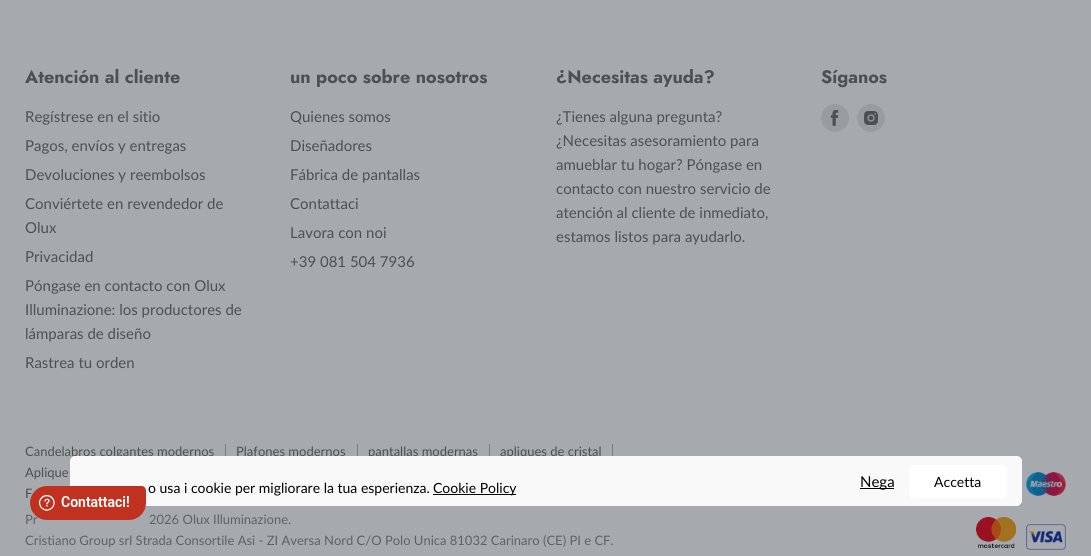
import math
import cairo


def round_path(ctx, x, y, w, h, r):
	ctx.new_sub_path()
	for i, (u, v) in enumerate([(x + w - r, y + h - r), (x + r, y + h - r), (x + r, y + r), (x + w - r, y + r)]):
		ctx.arc(u, v, r, i * math.pi / 2, (i + 1) * math.pi / 2)
	ctx.close_path()

def blur_box(ctx, x, y, w, h, r, blur, alpha):
	ctx.push_group_with_content(cairo.CONTENT_ALPHA)
	ctx.set_operator(cairo.OPERATOR_SOURCE)
	for i in range(15, -16, -2):
		e = blur * i / 6
		if min(w, h) + 2 * e > 0:
			ctx.set_source_rgba(0, 0, 0, alpha * math.erfc((i - 1) / 8.5) / 2)
			round_path(ctx, x - e, y - e, w + 2 * e, h + 2 * e, max(0, min(r + e + blur * .6, min(w, h) / 2 + e)))
			ctx.fill()
	ctx.mask(ctx.pop_group())

def paste(ctx, path, x, y, w, h):
	ctx.save()
	ctx.set_source_surface(cairo.ImageSurface.create_from_png(path), x, y)
	ctx.rectangle(x, y, w, h)
	ctx.fill()
	ctx.restore()

def draw(ctx):
	ctx.set_source_rgb(0.651, 0.667, 0.686)
	ctx.paint()
	ctx.select_font_face('Jost', cairo.FONT_SLANT_NORMAL, cairo.FONT_WEIGHT_BOLD)
	ctx.set_font_size(18)
	ctx.set_source_rgb(0.298, 0.314, 0.329)
	ctx.move_to(25, 83)
	ctx.show_text('Atención al cliente')
	ctx.select_font_face('Lato')
	ctx.set_font_size(15)
	for x, y, s in [
		(25, 122, 'Regístrese en el sitio'),
		(25, 151, 'Pagos, envíos y entregas'),
		(25, 180, 'Devoluciones y reembolsos'),
		(25, 209, 'Conviértete en revendedor de'),
		(25, 233, 'Olux'),
		(25, 262, 'Privacidad'),
		(25, 291, 'Póngase en contacto con Olux'),
		(25, 315, 'Illuminazione: los productores de'),
		(25, 339, 'lámparas de diseño'),
		(25, 368, 'Rastrea tu orden'),
	]:
		ctx.move_to(x, y)
		ctx.show_text(s)
	ctx.select_font_face('Jost', cairo.FONT_SLANT_NORMAL, cairo.FONT_WEIGHT_BOLD)
	ctx.set_font_size(18)
	ctx.move_to(290, 83)
	ctx.show_text('un poco sobre nosotros')
	ctx.select_font_face('Lato')
	ctx.set_font_size(15)
	for x, y, s in [
		(290, 122, 'Quienes somos'),
		(290, 151, 'Diseñadores'),
		(290, 180, 'Fábrica de pantallas'),
		(290, 209, 'Contattaci'),
		(290, 238, 'Lavora con noi'),
		(290, 267, '+39 081 504 7936'),
	]:
		ctx.move_to(x, y)
		ctx.show_text(s)
	ctx.select_font_face('Jost', cairo.FONT_SLANT_NORMAL, cairo.FONT_WEIGHT_BOLD)
	ctx.set_font_size(18)
	ctx.move_to(556, 83)
	ctx.show_text('¿Necesitas ayuda?')
	ctx.select_font_face('Lato')
	ctx.set_font_size(15)
	for x, y, s in [
		(556, 122, '¿Tienes alguna pregunta?'),
		(556, 146, '¿Necesitas asesoramiento para'),
		(556, 170, 'amueblar tu hogar? Póngase en'),
		(556, 194, 'contacto con nuestro servicio de'),
		(556, 218, 'atención al cliente de inmediato,'),
		(556, 242, 'estamos listos para ayudarlo.'),
	]:
		ctx.move_to(x, y)
		ctx.show_text(s)
	ctx.select_font_face('Jost', cairo.FONT_SLANT_NORMAL, cairo.FONT_WEIGHT_BOLD)
	ctx.set_font_size(18)
	ctx.move_to(821, 83)
	ctx.show_text('Síganos')
	ctx.set_source_rgb(0.596, 0.612, 0.631)
	ctx.new_path()
	ctx.arc(835, 118, 14, 0, 2 * math.pi)
	ctx.fill()
	paste(ctx, 'media/1.png', 831, 110, 8, 16)
	ctx.arc(871, 118, 14, 0, 2 * math.pi)
	ctx.fill()
	paste(ctx, 'media/2.png', 864, 111, 14, 14)
	ctx.set_source_rgb(0.475, 0.49, 0.51)
	ctx.rectangle(225, 444, 1, 15)
	ctx.fill()
	ctx.select_font_face('Lato')
	ctx.set_font_size(13)
	ctx.set_source_rgb(0.298, 0.314, 0.329)
	ctx.move_to(25, 456)
	ctx.show_text('Candelabros colgantes modernos')
	ctx.set_source_rgb(0.475, 0.49, 0.51)
	ctx.rectangle(357, 444, 1, 15)
	ctx.fill()
	ctx.set_source_rgb(0.298, 0.314, 0.329)
	ctx.move_to(236, 456)
	ctx.show_text('Plafones modernos')
	ctx.set_source_rgb(0.475, 0.49, 0.51)
	ctx.rectangle(489, 444, 1, 15)
	ctx.fill()
	ctx.set_source_rgb(0.298, 0.314, 0.329)
	ctx.move_to(368, 456)
	ctx.show_text('pantallas modernas')
	ctx.set_source_rgb(0.475, 0.49, 0.51)
	ctx.rectangle(612, 444, 1, 15)
	ctx.fill()
	ctx.set_source_rgb(0.298, 0.314, 0.329)
	for x, y, s in [
		(500, 456, 'apliques de cristal'),
		(25, 477, 'Aplique'),
		(25, 498, 'F'),
	]:
		ctx.move_to(x, y)
		ctx.show_text(s)
	ctx.set_source_rgb(0.369, 0.384, 0.4)
	for x, y, s in [
		(25, 524, 'Pr'),
		(149, 524, '2026 Olux Illuminazione.'),
		(25, 545, 'Cristiano Group srl Strada Consortile Asi - ZI Aversa Nord C/O Polo Unica 81032 Carinaro (CE) PI e CF.'),
	]:
		ctx.move_to(x, y)
		ctx.show_text(s)
	paste(ctx, 'media/3.png', 1026, 472, 40, 24)
	paste(ctx, 'media/4.png', 976, 517, 40, 31)
	paste(ctx, 'media/5.png', 1026, 524, 40, 26)
	ctx.save()
	ctx.rectangle(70, 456, 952, 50)
	ctx.clip()
	ctx.set_source_rgb(0, 0, 0)
	blur_box(ctx, 70, 458, 952, 50, 5, 5, 0.2)
	ctx.restore()
	ctx.set_source_rgb(0.973, 0.973, 0.973)
	round_path(ctx, 70, 456, 952, 50, 5)
	ctx.fill()
	paste(ctx, 'media/6.png', 30, 486, 116, 34)
	ctx.set_font_size(14)
	ctx.set_source_rgb(0, 0, 0)
	ctx.move_to(148, 493)
	ctx.show_text('o usa i cookie per migliorare la tua esperienza.')
	ctx.rectangle(433, 494, 83, 1)
	ctx.fill()
	ctx.move_to(433, 493)
	ctx.show_text('Cookie Policy')
	ctx.rectangle(860, 488, 34, 1)
	ctx.fill()
	ctx.set_font_size(15)
	ctx.move_to(860, 487)
	ctx.show_text('Nega')
	ctx.set_source_rgb(1, 1, 1)
	round_path(ctx, 909, 465, 98, 33, 5)
	ctx.fill()
	ctx.set_font_size(14)
	ctx.set_source_rgb(0, 0, 0)
	ctx.move_to(934, 487)
	ctx.show_text('Accetta')


surface = cairo.ImageSurface(cairo.FORMAT_RGB24, 1091, 556)
ctx = cairo.Context(surface)
options = cairo.FontOptions()
options.set_hint_metrics(cairo.HINT_METRICS_OFF)
options.set_hint_style(cairo.HINT_STYLE_NONE)
ctx.set_font_options(options)
ctx.set_miter_limit(4)
draw(ctx)
surface.write_to_png('image.png')
